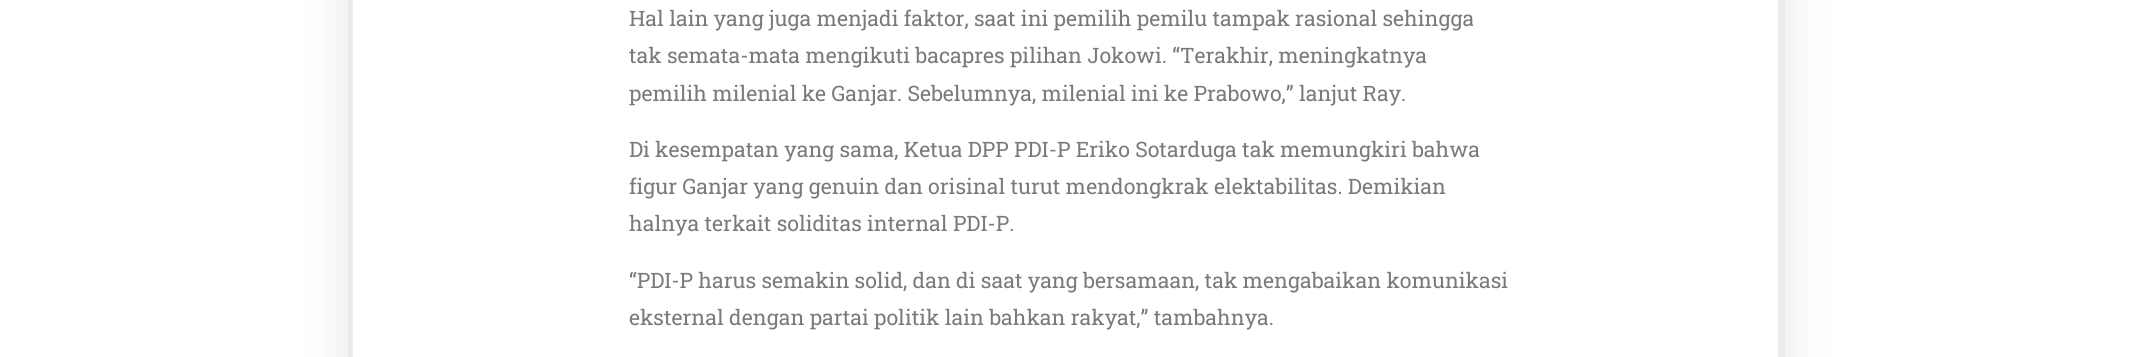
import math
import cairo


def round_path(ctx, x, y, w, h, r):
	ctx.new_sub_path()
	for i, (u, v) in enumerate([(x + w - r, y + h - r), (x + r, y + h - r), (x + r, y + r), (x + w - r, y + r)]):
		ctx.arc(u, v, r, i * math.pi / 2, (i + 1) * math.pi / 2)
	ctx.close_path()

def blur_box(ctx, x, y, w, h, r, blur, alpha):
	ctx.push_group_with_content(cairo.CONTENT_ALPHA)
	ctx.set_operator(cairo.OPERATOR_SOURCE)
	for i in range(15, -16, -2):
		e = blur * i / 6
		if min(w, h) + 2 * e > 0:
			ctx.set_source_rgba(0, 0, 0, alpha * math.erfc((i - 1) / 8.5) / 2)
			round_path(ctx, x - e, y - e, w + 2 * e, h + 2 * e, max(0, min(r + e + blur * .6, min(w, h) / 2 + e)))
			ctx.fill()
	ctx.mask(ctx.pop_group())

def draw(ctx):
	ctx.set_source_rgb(1, 1, 1)
	ctx.paint()
	ctx.set_source_rgb(0, 0, 0)
	blur_box(ctx, 388, -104, 1357, 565, 0, 34.5, 0.5)
	ctx.set_source_rgb(1, 1, 1)
	ctx.rectangle(353, 0, 1425, 357)
	ctx.fill()
	ctx.select_font_face('Roboto Slab')
	ctx.set_font_size(21.25)
	ctx.set_source_rgb(0.478, 0.478, 0.478)
	for x, y, s in [
		(629, 26, 'Hal lain yang juga menjadi faktor, saat ini pemilih pemilu tampak rasional sehingga'),
		(629, 63, 'tak semata-mata mengikuti bacapres pilihan Jokowi. “Terakhir, meningkatnya'),
		(629, 101, 'pemilih milenial ke Ganjar. Sebelumnya, milenial ini ke Prabowo,” lanjut Ray.'),
		(629, 157, 'Di kesempatan yang sama, Ketua DPP PDI-P Eriko Sotarduga tak memungkiri bahwa'),
		(629, 194, 'figur Ganjar yang genuin dan orisinal turut mendongkrak elektabilitas. Demikian'),
		(629, 231, 'halnya terkait soliditas internal PDI-P.'),
		(629, 288, '“PDI-P harus semakin solid, dan di saat yang bersamaan, tak mengabaikan komunikasi'),
		(629, 325, 'eksternal dengan partai politik lain bahkan rakyat,” tambahnya.'),
	]:
		ctx.move_to(x, y)
		ctx.show_text(s)


surface = cairo.ImageSurface(cairo.FORMAT_RGB24, 2130, 357)
ctx = cairo.Context(surface)
options = cairo.FontOptions()
options.set_hint_metrics(cairo.HINT_METRICS_OFF)
options.set_hint_style(cairo.HINT_STYLE_NONE)
ctx.set_font_options(options)
ctx.set_miter_limit(4)
draw(ctx)
surface.write_to_png('image.png')
